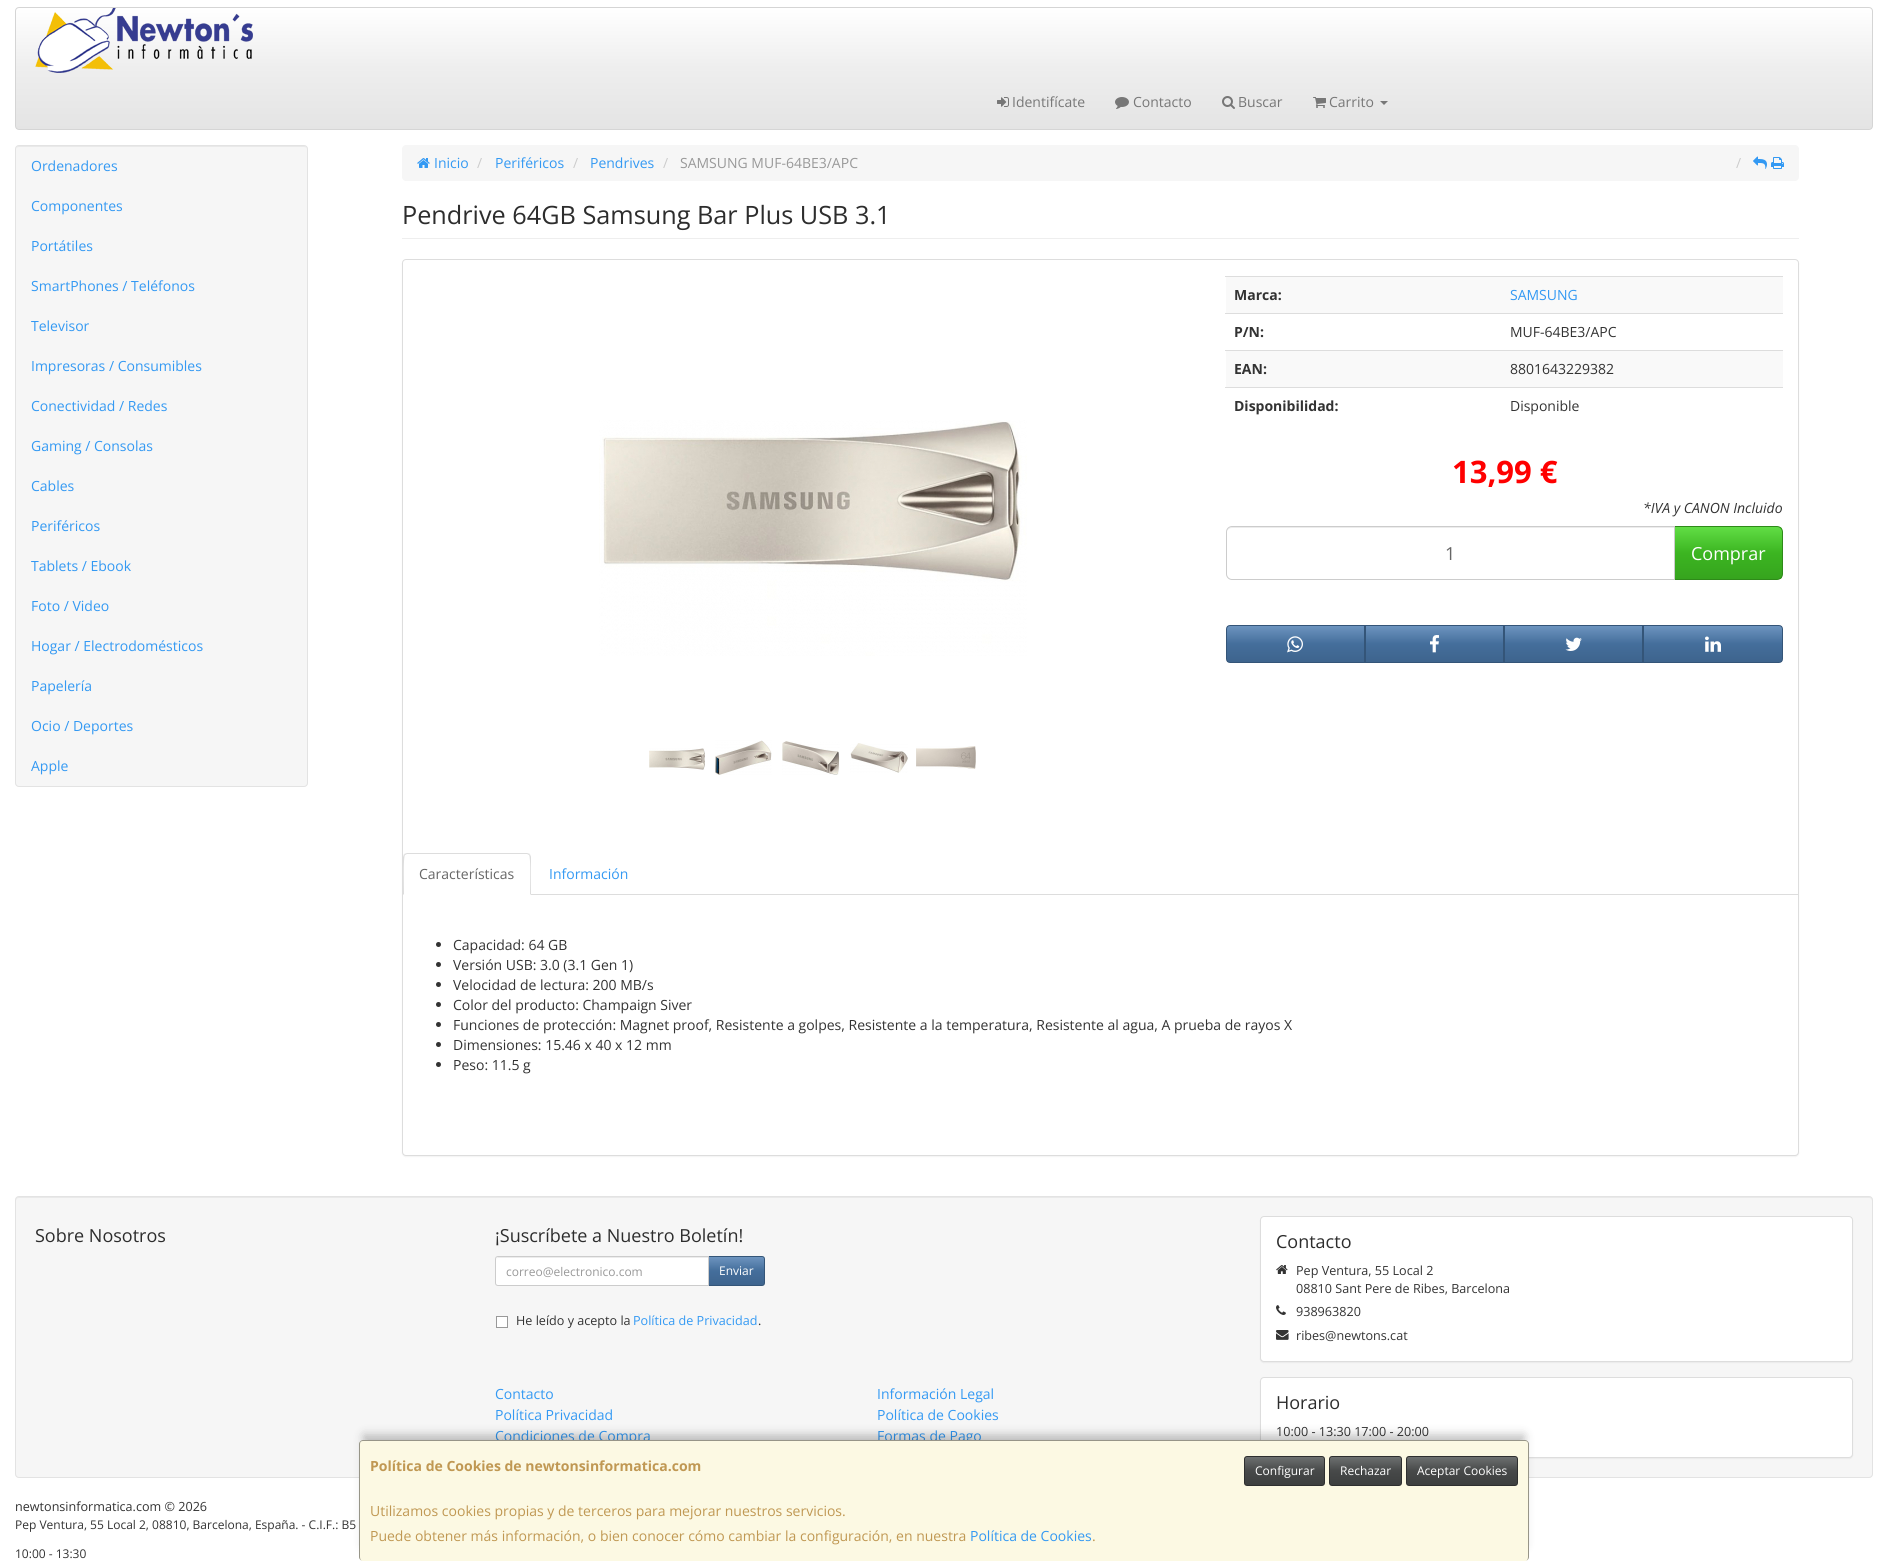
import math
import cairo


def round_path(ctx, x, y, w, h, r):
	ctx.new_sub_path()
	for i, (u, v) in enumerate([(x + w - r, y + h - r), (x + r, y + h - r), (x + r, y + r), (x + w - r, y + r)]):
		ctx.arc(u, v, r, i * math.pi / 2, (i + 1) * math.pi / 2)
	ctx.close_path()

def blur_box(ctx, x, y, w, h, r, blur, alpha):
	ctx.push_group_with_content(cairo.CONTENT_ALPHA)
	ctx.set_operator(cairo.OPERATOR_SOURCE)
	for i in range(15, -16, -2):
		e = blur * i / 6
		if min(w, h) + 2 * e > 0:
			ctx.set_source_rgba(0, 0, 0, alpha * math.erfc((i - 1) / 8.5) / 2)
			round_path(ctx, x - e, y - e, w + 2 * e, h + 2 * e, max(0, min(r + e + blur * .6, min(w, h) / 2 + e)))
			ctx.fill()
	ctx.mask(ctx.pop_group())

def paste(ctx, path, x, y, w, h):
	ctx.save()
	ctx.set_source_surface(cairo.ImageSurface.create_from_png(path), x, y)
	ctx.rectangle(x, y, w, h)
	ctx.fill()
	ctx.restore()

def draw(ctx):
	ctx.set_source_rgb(1, 1, 1)
	ctx.paint()
	ctx.save()
	round_path(ctx, 15, 7, 1858, 123, 4)
	ctx.clip()
	gradient = cairo.LinearGradient(944, 8, 944, 129)
	gradient.add_color_stop_rgba(0, 1, 1, 1, 1)
	gradient.add_color_stop_rgba(0.5, 0.933, 0.933, 0.933, 1)
	gradient.add_color_stop_rgba(1, 0.894, 0.894, 0.894, 1)
	ctx.set_source(gradient)
	ctx.rectangle(16, 8, 1856, 121)
	ctx.fill()
	ctx.restore()
	round_path(ctx, 15.5, 7.5, 1857, 122, 3.5)
	ctx.set_source_rgb(0.835, 0.835, 0.835)
	ctx.set_line_width(1)
	ctx.stroke()
	paste(ctx, 'media/1.png', 35, 8, 218, 65)
	paste(ctx, 'media/2.png', 997, 97, 12, 10)
	ctx.select_font_face('Open Sans')
	ctx.set_font_size(14)
	ctx.set_source_rgb(0.467, 0.467, 0.467)
	ctx.move_to(1012, 107)
	ctx.show_text('Identifícate')
	paste(ctx, 'media/3.png', 1115, 97, 14, 12)
	ctx.move_to(1133, 107)
	ctx.show_text('Contacto')
	paste(ctx, 'media/4.png', 1222, 96, 13, 13)
	ctx.move_to(1238, 107)
	ctx.show_text('Buscar')
	paste(ctx, 'media/5.png', 1313, 97, 13, 11)
	ctx.move_to(1329, 107)
	ctx.show_text('Carrito')
	ctx.new_path()
	ctx.move_to(1380, 101)
	ctx.line_to(1388, 101)
	ctx.line_to(1384, 105)
	ctx.close_path()
	ctx.fill()
	ctx.set_source_rgb(0.961, 0.961, 0.961)
	round_path(ctx, 15, 145, 293, 642, 4)
	ctx.fill()
	ctx.set_source_rgb(0.914, 0.914, 0.914)
	ctx.new_path()
	ctx.move_to(19, 147)
	ctx.line_to(304, 147)
	ctx.curve_to(306, 147, 307, 148, 307, 150)
	ctx.curve_to(307, 148, 306, 146, 304, 146)
	ctx.line_to(19, 146)
	ctx.curve_to(17, 146, 16, 148, 16, 150)
	ctx.curve_to(16, 148, 17, 147, 19, 147)
	ctx.close_path()
	ctx.fill()
	round_path(ctx, 15.5, 145.5, 292, 641, 3.5)
	ctx.set_source_rgb(0.89, 0.89, 0.89)
	ctx.stroke()
	ctx.set_source_rgb(0.2, 0.6, 0.953)
	for x, y, s in [
		(31, 171, 'Ordenadores'),
		(31, 211, 'Componentes'),
		(31, 251, 'Portátiles'),
		(31, 291, 'SmartPhones / Teléfonos'),
		(31, 331, 'Televisor'),
		(31, 371, 'Impresoras / Consumibles'),
		(31, 411, 'Conectividad / Redes'),
		(31, 451, 'Gaming / Consolas'),
		(31, 491, 'Cables'),
		(31, 531, 'Periféricos'),
		(31, 571, 'Tablets / Ebook'),
		(31, 611, 'Foto / Video'),
		(31, 651, 'Hogar / Electrodomésticos'),
		(31, 691, 'Papelería'),
		(31, 731, 'Ocio / Deportes'),
		(31, 771, 'Apple'),
	]:
		ctx.move_to(x, y)
		ctx.show_text(s)
	ctx.set_source_rgb(0.961, 0.961, 0.961)
	round_path(ctx, 402, 145, 1397, 36, 4)
	ctx.fill()
	paste(ctx, 'media/6.png', 417, 158, 13, 10)
	ctx.set_source_rgb(0.2, 0.6, 0.953)
	ctx.move_to(434, 168)
	ctx.show_text('Inicio')
	ctx.set_source_rgb(0.8, 0.8, 0.8)
	ctx.move_to(477, 168)
	ctx.show_text('/')
	ctx.set_source_rgb(0.2, 0.6, 0.953)
	ctx.move_to(495, 168)
	ctx.show_text('Periféricos')
	ctx.set_source_rgb(0.8, 0.8, 0.8)
	ctx.move_to(573, 168)
	ctx.show_text('/')
	ctx.set_source_rgb(0.2, 0.6, 0.953)
	ctx.move_to(590, 168)
	ctx.show_text('Pendrives')
	ctx.set_source_rgb(0.8, 0.8, 0.8)
	ctx.move_to(663, 168)
	ctx.show_text('/')
	ctx.set_source_rgb(0.6, 0.6, 0.6)
	ctx.move_to(680, 168)
	ctx.show_text('SAMSUNG MUF-64BE3/APC')
	ctx.set_source_rgb(0.8, 0.8, 0.8)
	ctx.move_to(1736, 168)
	ctx.show_text('/')
	paste(ctx, 'media/7.png', 1753, 156, 14, 13)
	paste(ctx, 'media/8.png', 1771, 157, 13, 12)
	ctx.set_source_rgb(0.933, 0.933, 0.933)
	ctx.rectangle(402, 238, 1397, 1)
	ctx.fill()
	ctx.set_font_size(25.25)
	ctx.set_source_rgb(0.176, 0.176, 0.176)
	ctx.move_to(402, 224)
	ctx.show_text('Pendrive 64GB Samsung Bar Plus USB 3.1')
	ctx.set_source_rgb(0, 0, 0)
	blur_box(ctx, 402, 260, 1397, 897, 4, 0.5, 0.05)
	ctx.set_source_rgb(1, 1, 1)
	round_path(ctx, 402.5, 259.5, 1396, 896, 3.5)
	ctx.fill_preserve()
	ctx.set_source_rgb(0.867, 0.867, 0.867)
	ctx.stroke()
	paste(ctx, 'media/9.png', 599, 420, 428, 236)
	paste(ctx, 'media/10.png', 649, 748, 56, 22)
	paste(ctx, 'media/11.png', 715, 740, 57, 35)
	paste(ctx, 'media/12.png', 782, 741, 58, 34)
	paste(ctx, 'media/13.png', 850, 743, 58, 30)
	paste(ctx, 'media/14.png', 916, 746, 60, 23)
	ctx.set_source_rgb(0.976, 0.976, 0.976)
	ctx.rectangle(1226, 277, 557, 36)
	ctx.fill()
	ctx.select_font_face('Open Sans', cairo.FONT_SLANT_NORMAL, cairo.FONT_WEIGHT_BOLD)
	ctx.set_font_size(14)
	ctx.set_source_rgb(0.2, 0.2, 0.2)
	ctx.move_to(1234, 300)
	ctx.show_text('Marca:')
	ctx.set_source_rgb(0.867, 0.867, 0.867)
	ctx.rectangle(1225, 276, 558, 1)
	ctx.fill()
	ctx.select_font_face('Open Sans')
	ctx.set_source_rgb(0.2, 0.6, 0.953)
	ctx.move_to(1510, 300)
	ctx.show_text('SAMSUNG')
	ctx.select_font_face('Open Sans', cairo.FONT_SLANT_NORMAL, cairo.FONT_WEIGHT_BOLD)
	ctx.set_source_rgb(0.2, 0.2, 0.2)
	ctx.move_to(1234, 337)
	ctx.show_text('P/N:')
	ctx.set_source_rgb(0.867, 0.867, 0.867)
	ctx.rectangle(1225, 313, 558, 1)
	ctx.fill()
	ctx.select_font_face('Open Sans')
	ctx.set_source_rgb(0.2, 0.2, 0.2)
	ctx.move_to(1510, 337)
	ctx.show_text('MUF-64BE3/APC')
	ctx.set_source_rgb(0.976, 0.976, 0.976)
	ctx.rectangle(1226, 351, 557, 36)
	ctx.fill()
	ctx.select_font_face('Open Sans', cairo.FONT_SLANT_NORMAL, cairo.FONT_WEIGHT_BOLD)
	ctx.set_source_rgb(0.2, 0.2, 0.2)
	ctx.move_to(1234, 374)
	ctx.show_text('EAN:')
	ctx.set_source_rgb(0.867, 0.867, 0.867)
	ctx.rectangle(1225, 350, 558, 1)
	ctx.fill()
	ctx.select_font_face('Open Sans')
	ctx.set_source_rgb(0.2, 0.2, 0.2)
	ctx.move_to(1510, 374)
	ctx.show_text('8801643229382')
	ctx.select_font_face('Open Sans', cairo.FONT_SLANT_NORMAL, cairo.FONT_WEIGHT_BOLD)
	ctx.move_to(1234, 411)
	ctx.show_text('Disponibilidad:')
	ctx.set_source_rgb(0.867, 0.867, 0.867)
	ctx.rectangle(1225, 387, 558, 1)
	ctx.fill()
	ctx.select_font_face('Open Sans')
	ctx.set_source_rgb(0.2, 0.2, 0.2)
	ctx.move_to(1510, 411)
	ctx.show_text('Disponible')
	ctx.select_font_face('Open Sans', cairo.FONT_SLANT_NORMAL, cairo.FONT_WEIGHT_BOLD)
	ctx.set_font_size(31)
	ctx.set_source_rgb(1, 0, 0)
	ctx.move_to(1452, 483)
	ctx.show_text('13,99 €')
	ctx.select_font_face('Open Sans', cairo.FONT_SLANT_ITALIC)
	ctx.set_font_size(14)
	ctx.set_source_rgb(0.2, 0.2, 0.2)
	ctx.move_to(1643, 513)
	ctx.show_text('*IVA y CANON Incluido')
	ctx.save()
	ctx.new_path()
	ctx.move_to(1674, 526)
	ctx.line_to(1777, 526)
	ctx.curve_to(1780.5, 526, 1783, 528.5, 1783, 532)
	ctx.line_to(1783, 574)
	ctx.curve_to(1783, 577.5, 1780.5, 580, 1777, 580)
	ctx.line_to(1674, 580)
	ctx.close_path()
	ctx.clip()
	gradient = cairo.LinearGradient(1729, 527, 1729, 579)
	gradient.add_color_stop_rgba(0, 0.38, 0.867, 0.271, 1)
	gradient.add_color_stop_rgba(0.5, 0.235, 0.71, 0.129, 1)
	gradient.add_color_stop_rgba(1, 0.212, 0.643, 0.118, 1)
	ctx.set_source(gradient)
	ctx.rectangle(1675, 527, 107, 52)
	ctx.fill()
	ctx.restore()
	ctx.new_path()
	ctx.move_to(1674.5, 526.5)
	ctx.line_to(1777, 526.5)
	ctx.curve_to(1780, 526.5, 1782.5, 529, 1782.5, 532)
	ctx.line_to(1782.5, 574)
	ctx.curve_to(1782.5, 577, 1780, 579.5, 1777, 579.5)
	ctx.line_to(1674.5, 579.5)
	ctx.close_path()
	ctx.set_source_rgb(0.18, 0.541, 0.098)
	ctx.stroke()
	ctx.set_source_rgb(1, 1, 1)
	ctx.new_path()
	ctx.move_to(1232, 526)
	ctx.line_to(1675, 526)
	ctx.line_to(1675, 580)
	ctx.line_to(1232, 580)
	ctx.curve_to(1228.5, 580, 1226, 577.5, 1226, 574)
	ctx.line_to(1226, 532)
	ctx.curve_to(1226, 528.5, 1228.5, 526, 1232, 526)
	ctx.close_path()
	ctx.fill()
	ctx.set_source_rgb(0.925, 0.925, 0.925)
	ctx.new_path()
	ctx.move_to(1232, 528)
	ctx.line_to(1674, 528)
	ctx.line_to(1674, 527)
	ctx.line_to(1232, 527)
	ctx.curve_to(1229, 527, 1227, 530, 1227, 533)
	ctx.curve_to(1227, 530, 1229, 528, 1232, 528)
	ctx.close_path()
	ctx.fill()
	ctx.new_path()
	ctx.move_to(1232, 526.5)
	ctx.line_to(1674.5, 526.5)
	ctx.line_to(1674.5, 579.5)
	ctx.line_to(1232, 579.5)
	ctx.curve_to(1229, 579.5, 1226.5, 577, 1226.5, 574)
	ctx.line_to(1226.5, 532)
	ctx.curve_to(1226.5, 529, 1229, 526.5, 1232, 526.5)
	ctx.close_path()
	ctx.set_source_rgb(0.8, 0.8, 0.8)
	ctx.stroke()
	ctx.select_font_face('Open Sans')
	ctx.set_font_size(18)
	ctx.set_source_rgb(0.4, 0.4, 0.4)
	ctx.move_to(1445, 560)
	ctx.show_text('1')
	ctx.set_source_rgb(1, 1, 1)
	ctx.move_to(1691, 560)
	ctx.show_text('Comprar')
	gradient = cairo.LinearGradient(1296, 626, 1296, 662)
	gradient.add_color_stop_rgba(0, 0.427, 0.58, 0.749, 1)
	gradient.add_color_stop_rgba(0.5, 0.267, 0.431, 0.608, 1)
	gradient.add_color_stop_rgba(1, 0.243, 0.392, 0.553, 1)
	ctx.set_source(gradient)
	ctx.rectangle(1227, 626, 137, 36)
	ctx.fill()
	ctx.new_path()
	ctx.move_to(1230, 625.5)
	ctx.line_to(1364.5, 625.5)
	ctx.line_to(1364.5, 662.5)
	ctx.line_to(1230, 662.5)
	ctx.curve_to(1228, 662.5, 1226.5, 661, 1226.5, 659)
	ctx.line_to(1226.5, 629)
	ctx.curve_to(1226.5, 627, 1228, 625.5, 1230, 625.5)
	ctx.close_path()
	ctx.set_source_rgb(0.204, 0.333, 0.471)
	ctx.stroke()
	paste(ctx, 'media/15.png', 1287, 636, 16, 17)
	gradient = cairo.LinearGradient(1435, 626, 1435, 662)
	gradient.add_color_stop_rgba(0, 0.427, 0.58, 0.749, 1)
	gradient.add_color_stop_rgba(0.5, 0.267, 0.431, 0.608, 1)
	gradient.add_color_stop_rgba(1, 0.243, 0.392, 0.553, 1)
	ctx.set_source(gradient)
	ctx.rectangle(1366, 626, 137, 36)
	ctx.fill()
	ctx.rectangle(1365.5, 625.5, 138, 37)
	ctx.set_source_rgb(0.204, 0.333, 0.471)
	ctx.stroke()
	paste(ctx, 'media/16.png', 1430, 635, 9, 18)
	gradient = cairo.LinearGradient(1574, 626, 1574, 662)
	gradient.add_color_stop_rgba(0, 0.427, 0.58, 0.749, 1)
	gradient.add_color_stop_rgba(0.5, 0.267, 0.431, 0.608, 1)
	gradient.add_color_stop_rgba(1, 0.243, 0.392, 0.553, 1)
	ctx.set_source(gradient)
	ctx.rectangle(1505, 626, 137, 36)
	ctx.fill()
	ctx.rectangle(1504.5, 625.5, 138, 37)
	ctx.set_source_rgb(0.204, 0.333, 0.471)
	ctx.stroke()
	paste(ctx, 'media/17.png', 1565, 637, 17, 14)
	gradient = cairo.LinearGradient(1713, 626, 1713, 662)
	gradient.add_color_stop_rgba(0, 0.427, 0.58, 0.749, 1)
	gradient.add_color_stop_rgba(0.5, 0.267, 0.431, 0.608, 1)
	gradient.add_color_stop_rgba(1, 0.243, 0.392, 0.553, 1)
	ctx.set_source(gradient)
	ctx.rectangle(1644, 626, 138, 36)
	ctx.fill()
	ctx.new_path()
	ctx.move_to(1643.5, 625.5)
	ctx.line_to(1779, 625.5)
	ctx.curve_to(1781, 625.5, 1782.5, 627, 1782.5, 629)
	ctx.line_to(1782.5, 659)
	ctx.curve_to(1782.5, 661, 1781, 662.5, 1779, 662.5)
	ctx.line_to(1643.5, 662.5)
	ctx.close_path()
	ctx.set_source_rgb(0.204, 0.333, 0.471)
	ctx.stroke()
	paste(ctx, 'media/18.png', 1705, 636, 16, 16)
	ctx.set_source_rgb(0.867, 0.867, 0.867)
	ctx.rectangle(531, 894, 1267, 1)
	ctx.fill()
	ctx.new_path()
	ctx.move_to(407, 853)
	ctx.line_to(404, 854)
	ctx.line_to(405, 855)
	ctx.line_to(407, 854)
	ctx.line_to(527, 854)
	ctx.line_to(529, 855)
	ctx.line_to(530, 854)
	ctx.line_to(527, 853)
	ctx.close_path()
	ctx.fill()
	ctx.new_path()
	ctx.move_to(531, 895)
	ctx.line_to(531, 857)
	ctx.curve_to(531, 856, 530, 855, 530, 854)
	ctx.line_to(529, 855)
	ctx.curve_to(531, 857, 530, 889, 530, 894)
	ctx.close_path()
	ctx.fill()
	ctx.new_path()
	ctx.move_to(403, 895)
	ctx.line_to(404, 894)
	ctx.curve_to(404, 889, 403, 857, 405, 855)
	ctx.line_to(404, 854)
	ctx.line_to(403, 857)
	ctx.close_path()
	ctx.fill()
	ctx.set_font_size(14)
	ctx.set_source_rgb(0.4, 0.4, 0.4)
	ctx.move_to(419, 879)
	ctx.show_text('Características')
	ctx.set_source_rgb(0.2, 0.6, 0.953)
	ctx.move_to(549, 879)
	ctx.show_text('Información')
	ctx.set_source_rgb(0.2, 0.2, 0.2)
	ctx.new_path()
	ctx.arc(438.5, 944.5, 2.5, 0, 2 * math.pi)
	ctx.fill()
	ctx.move_to(453, 950)
	ctx.show_text('Capacidad: 64 GB')
	ctx.new_path()
	ctx.arc(438.5, 964.5, 2.5, 0, 2 * math.pi)
	ctx.fill()
	ctx.move_to(453, 970)
	ctx.show_text('Versión USB: 3.0 (3.1 Gen 1)')
	ctx.new_path()
	ctx.arc(438.5, 984.5, 2.5, 0, 2 * math.pi)
	ctx.fill()
	ctx.move_to(453, 990)
	ctx.show_text('Velocidad de lectura: 200 MB/s')
	ctx.new_path()
	ctx.arc(438.5, 1004.5, 2.5, 0, 2 * math.pi)
	ctx.fill()
	ctx.move_to(453, 1010)
	ctx.show_text('Color del producto: Champaign Siver')
	ctx.new_path()
	ctx.arc(438.5, 1024.5, 2.5, 0, 2 * math.pi)
	ctx.fill()
	ctx.move_to(453, 1030)
	ctx.show_text('Funciones de protección: Magnet proof, Resistente a golpes, Resistente a la temperatura, Resistente al agua, A prueba de rayos X')
	ctx.new_path()
	ctx.arc(438.5, 1044.5, 2.5, 0, 2 * math.pi)
	ctx.fill()
	ctx.move_to(453, 1050)
	ctx.show_text('Dimensiones: 15.46 x 40 x 12 mm')
	ctx.new_path()
	ctx.arc(438.5, 1064.5, 2.5, 0, 2 * math.pi)
	ctx.fill()
	ctx.move_to(453, 1070)
	ctx.show_text('Peso: 11.5 g')
	ctx.set_source_rgb(0.961, 0.961, 0.961)
	round_path(ctx, 15, 1196, 1858, 282, 4)
	ctx.fill()
	ctx.set_source_rgb(0.914, 0.914, 0.914)
	ctx.new_path()
	ctx.move_to(19, 1198)
	ctx.line_to(1869, 1198)
	ctx.curve_to(1871, 1198, 1872, 1199, 1872, 1201)
	ctx.line_to(1872, 1200)
	ctx.curve_to(1872, 1198, 1871, 1197, 1869, 1197)
	ctx.line_to(19, 1197)
	ctx.curve_to(17, 1197, 16, 1198, 16, 1200)
	ctx.line_to(16, 1201)
	ctx.curve_to(16, 1199, 17, 1198, 19, 1198)
	ctx.close_path()
	ctx.fill()
	round_path(ctx, 15.5, 1196.5, 1857, 281, 3.5)
	ctx.set_source_rgb(0.89, 0.89, 0.89)
	ctx.stroke()
	ctx.set_font_size(18)
	ctx.set_source_rgb(0.176, 0.176, 0.176)
	ctx.move_to(35, 1242)
	ctx.show_text('Sobre Nosotros')
	ctx.move_to(495, 1242)
	ctx.show_text('¡Suscríbete a Nuestro Boletín!')
	gradient = cairo.LinearGradient(737, 1257, 737, 1285)
	gradient.add_color_stop_rgba(0, 0.427, 0.58, 0.749, 1)
	gradient.add_color_stop_rgba(0.5, 0.267, 0.431, 0.608, 1)
	gradient.add_color_stop_rgba(1, 0.243, 0.392, 0.553, 1)
	ctx.set_source(gradient)
	ctx.rectangle(709, 1257, 55, 28)
	ctx.fill()
	ctx.new_path()
	ctx.move_to(708.5, 1256.5)
	ctx.line_to(762, 1256.5)
	ctx.curve_to(763.5, 1256.5, 764.5, 1257.5, 764.5, 1259)
	ctx.line_to(764.5, 1283)
	ctx.curve_to(764.5, 1284.5, 763.5, 1285.5, 762, 1285.5)
	ctx.line_to(708.5, 1285.5)
	ctx.close_path()
	ctx.set_source_rgb(0.204, 0.333, 0.471)
	ctx.stroke()
	ctx.set_source_rgb(1, 1, 1)
	ctx.new_path()
	ctx.move_to(498, 1256)
	ctx.line_to(709, 1256)
	ctx.line_to(709, 1286)
	ctx.line_to(498, 1286)
	ctx.curve_to(496.5, 1286, 495, 1284.5, 495, 1283)
	ctx.line_to(495, 1259)
	ctx.curve_to(495, 1257.5, 496.5, 1256, 498, 1256)
	ctx.close_path()
	ctx.fill()
	ctx.set_source_rgb(0.925, 0.925, 0.925)
	ctx.new_path()
	ctx.move_to(498, 1258)
	ctx.line_to(708, 1258)
	ctx.line_to(708, 1257)
	ctx.line_to(498, 1257)
	ctx.line_to(497, 1258)
	ctx.line_to(496, 1260)
	ctx.curve_to(496, 1259, 497, 1258, 498, 1258)
	ctx.close_path()
	ctx.fill()
	ctx.new_path()
	ctx.move_to(498, 1256.5)
	ctx.line_to(708.5, 1256.5)
	ctx.line_to(708.5, 1285.5)
	ctx.line_to(498, 1285.5)
	ctx.curve_to(496.5, 1285.5, 495.5, 1284.5, 495.5, 1283)
	ctx.line_to(495.5, 1259)
	ctx.curve_to(495.5, 1257.5, 496.5, 1256.5, 498, 1256.5)
	ctx.close_path()
	ctx.set_source_rgb(0.8, 0.8, 0.8)
	ctx.stroke()
	ctx.set_font_size(12)
	ctx.set_source_rgb(0.6, 0.6, 0.6)
	ctx.move_to(506, 1276)
	ctx.show_text('correo@electronico.com')
	ctx.set_source_rgb(1, 1, 1)
	ctx.move_to(719, 1275)
	ctx.show_text('Enviar')
	ctx.rectangle(496.5, 1316.5, 11, 11)
	ctx.fill_preserve()
	ctx.set_source_rgb(0.6, 0.6, 0.6)
	ctx.stroke()
	ctx.set_font_size(12.6)
	ctx.set_source_rgb(0.2, 0.2, 0.2)
	ctx.move_to(516, 1325)
	ctx.show_text('He leído y acepto la')
	ctx.set_source_rgb(0.2, 0.6, 0.953)
	ctx.move_to(633, 1325)
	ctx.show_text('Política de Privacidad')
	ctx.set_source_rgb(0.2, 0.2, 0.2)
	ctx.move_to(758, 1325)
	ctx.show_text('.')
	ctx.set_font_size(14)
	ctx.set_source_rgb(0.2, 0.6, 0.953)
	for x, y, s in [
		(495, 1399, 'Contacto'),
		(877, 1399, 'Información Legal'),
		(495, 1420, 'Política Privacidad'),
		(877, 1420, 'Política de Cookies'),
		(495, 1441, 'Condiciones de Compra'),
		(877, 1441, 'Formas de Pago'),
	]:
		ctx.move_to(x, y)
		ctx.show_text(s)
	ctx.set_source_rgb(0, 0, 0)
	blur_box(ctx, 1260, 1217, 593, 146, 4, 0.5, 0.05)
	ctx.set_source_rgb(1, 1, 1)
	round_path(ctx, 1260.5, 1216.5, 592, 145, 3.5)
	ctx.fill_preserve()
	ctx.set_source_rgb(0.867, 0.867, 0.867)
	ctx.stroke()
	ctx.set_font_size(18)
	ctx.set_source_rgb(0.176, 0.176, 0.176)
	ctx.move_to(1276, 1248)
	ctx.show_text('Contacto')
	paste(ctx, 'media/19.png', 1276, 1265, 12, 9)
	ctx.set_font_size(12.6)
	ctx.set_source_rgb(0.2, 0.2, 0.2)
	ctx.move_to(1296, 1275)
	ctx.show_text('Pep Ventura, 55 Local 2')
	ctx.move_to(1296, 1293)
	ctx.show_text('08810 Sant Pere de Ribes, Barcelona')
	paste(ctx, 'media/20.png', 1276, 1305, 10, 10)
	ctx.move_to(1296, 1316)
	ctx.show_text('938963820')
	paste(ctx, 'media/21.png', 1276, 1330, 13, 10)
	ctx.move_to(1296, 1340)
	ctx.show_text('ribes@newtons.cat')
	ctx.set_source_rgb(0, 0, 0)
	blur_box(ctx, 1260, 1378, 593, 81, 4, 0.5, 0.05)
	ctx.set_source_rgb(1, 1, 1)
	round_path(ctx, 1260.5, 1377.5, 592, 80, 3.5)
	ctx.fill_preserve()
	ctx.set_source_rgb(0.867, 0.867, 0.867)
	ctx.stroke()
	ctx.set_font_size(18)
	ctx.set_source_rgb(0.176, 0.176, 0.176)
	ctx.move_to(1276, 1409)
	ctx.show_text('Horario')
	ctx.set_font_size(12.6)
	ctx.set_source_rgb(0.2, 0.2, 0.2)
	ctx.move_to(1276, 1436)
	ctx.show_text('10:00 - 13:30 17:00 - 20:00')
	ctx.move_to(15, 1511)
	ctx.show_text('newtonsinformatica.com © 2026')
	ctx.set_font_size(12)
	ctx.move_to(15, 1529)
	ctx.show_text('Pep Ventura, 55 Local 2, 08810, Barcelona, España. - C.I.F.: B5')
	ctx.move_to(15, 1558)
	ctx.show_text('10:00 - 13:30')
	ctx.set_source_rgb(0, 0, 0)
	blur_box(ctx, 364, 1435, 1160, 111, 0, 5, 0.25)
	ctx.set_source_rgb(0.988, 0.973, 0.89)
	round_path(ctx, 359, 1440, 1170, 121, 4)
	ctx.fill()
	ctx.set_source_rgba(0, 0, 0, 0.4)
	ctx.set_fill_rule(cairo.FILL_RULE_EVEN_ODD)
	ctx.new_path()
	ctx.move_to(363, 1440)
	ctx.line_to(1525, 1440)
	ctx.curve_to(1527, 1440, 1529, 1442, 1529, 1444)
	ctx.line_to(1529, 1557)
	ctx.curve_to(1529, 1559, 1527, 1561, 1525, 1561)
	ctx.line_to(363, 1561)
	ctx.curve_to(361, 1561, 359, 1559, 359, 1557)
	ctx.line_to(359, 1444)
	ctx.curve_to(359, 1442, 361, 1440, 363, 1440)
	ctx.close_path()
	ctx.move_to(363, 1441)
	ctx.line_to(1525, 1441)
	ctx.curve_to(1527, 1441, 1528, 1442, 1528, 1444)
	ctx.line_to(1528, 1557)
	ctx.curve_to(1528, 1559, 1527, 1561, 1525, 1561)
	ctx.line_to(363, 1561)
	ctx.curve_to(361, 1561, 360, 1559, 360, 1557)
	ctx.line_to(360, 1444)
	ctx.curve_to(360, 1442, 361, 1441, 363, 1441)
	ctx.close_path()
	ctx.fill()
	ctx.select_font_face('Open Sans', cairo.FONT_SLANT_NORMAL, cairo.FONT_WEIGHT_BOLD)
	ctx.set_font_size(14)
	ctx.set_source_rgb(0.753, 0.596, 0.325)
	ctx.move_to(370, 1471)
	ctx.show_text('Política de Cookies de newtonsinformatica.com')
	gradient = cairo.LinearGradient(1285, 1457, 1285, 1485)
	gradient.add_color_stop_rgba(0, 0.427, 0.439, 0.439, 1)
	gradient.add_color_stop_rgba(0.5, 0.278, 0.286, 0.286, 1)
	gradient.add_color_stop_rgba(1, 0.239, 0.247, 0.247, 1)
	ctx.set_source(gradient)
	ctx.rectangle(1245, 1457, 79, 28)
	ctx.fill()
	round_path(ctx, 1244.5, 1456.5, 80, 29, 2.5)
	ctx.set_source_rgb(0.18, 0.184, 0.184)
	ctx.stroke()
	ctx.select_font_face('Open Sans')
	ctx.set_font_size(12)
	ctx.set_source_rgb(1, 1, 1)
	ctx.move_to(1255, 1475)
	ctx.show_text('Configurar')
	gradient = cairo.LinearGradient(1366, 1457, 1366, 1485)
	gradient.add_color_stop_rgba(0, 0.427, 0.439, 0.439, 1)
	gradient.add_color_stop_rgba(0.5, 0.278, 0.286, 0.286, 1)
	gradient.add_color_stop_rgba(1, 0.239, 0.247, 0.247, 1)
	ctx.set_source(gradient)
	ctx.rectangle(1330, 1457, 71, 28)
	ctx.fill()
	round_path(ctx, 1329.5, 1456.5, 72, 29, 2.5)
	ctx.set_source_rgb(0.18, 0.184, 0.184)
	ctx.stroke()
	ctx.set_source_rgb(1, 1, 1)
	ctx.move_to(1340, 1475)
	ctx.show_text('Rechazar')
	gradient = cairo.LinearGradient(1462, 1457, 1462, 1485)
	gradient.add_color_stop_rgba(0, 0.427, 0.439, 0.439, 1)
	gradient.add_color_stop_rgba(0.5, 0.278, 0.286, 0.286, 1)
	gradient.add_color_stop_rgba(1, 0.239, 0.247, 0.247, 1)
	ctx.set_source(gradient)
	ctx.rectangle(1407, 1457, 110, 28)
	ctx.fill()
	round_path(ctx, 1406.5, 1456.5, 111, 29, 2.5)
	ctx.set_source_rgb(0.18, 0.184, 0.184)
	ctx.stroke()
	ctx.set_source_rgb(1, 1, 1)
	ctx.move_to(1417, 1475)
	ctx.show_text('Aceptar Cookies')
	ctx.set_font_size(14)
	ctx.set_source_rgb(0.753, 0.596, 0.325)
	ctx.move_to(370, 1516)
	ctx.show_text('Utilizamos cookies propias y de terceros para mejorar nuestros servicios.')
	ctx.move_to(370, 1541)
	ctx.show_text('Puede obtener más información, o bien conocer cómo cambiar la configuración, en nuestra')
	ctx.set_source_rgb(0.2, 0.6, 0.953)
	ctx.move_to(970, 1541)
	ctx.show_text('Política de Cookies')
	ctx.set_source_rgb(0.753, 0.596, 0.325)
	ctx.move_to(1092, 1541)
	ctx.show_text('.')


surface = cairo.ImageSurface(cairo.FORMAT_RGB24, 1888, 1561)
ctx = cairo.Context(surface)
options = cairo.FontOptions()
options.set_hint_metrics(cairo.HINT_METRICS_OFF)
options.set_hint_style(cairo.HINT_STYLE_NONE)
ctx.set_font_options(options)
ctx.set_miter_limit(4)
draw(ctx)
surface.write_to_png('image.png')
